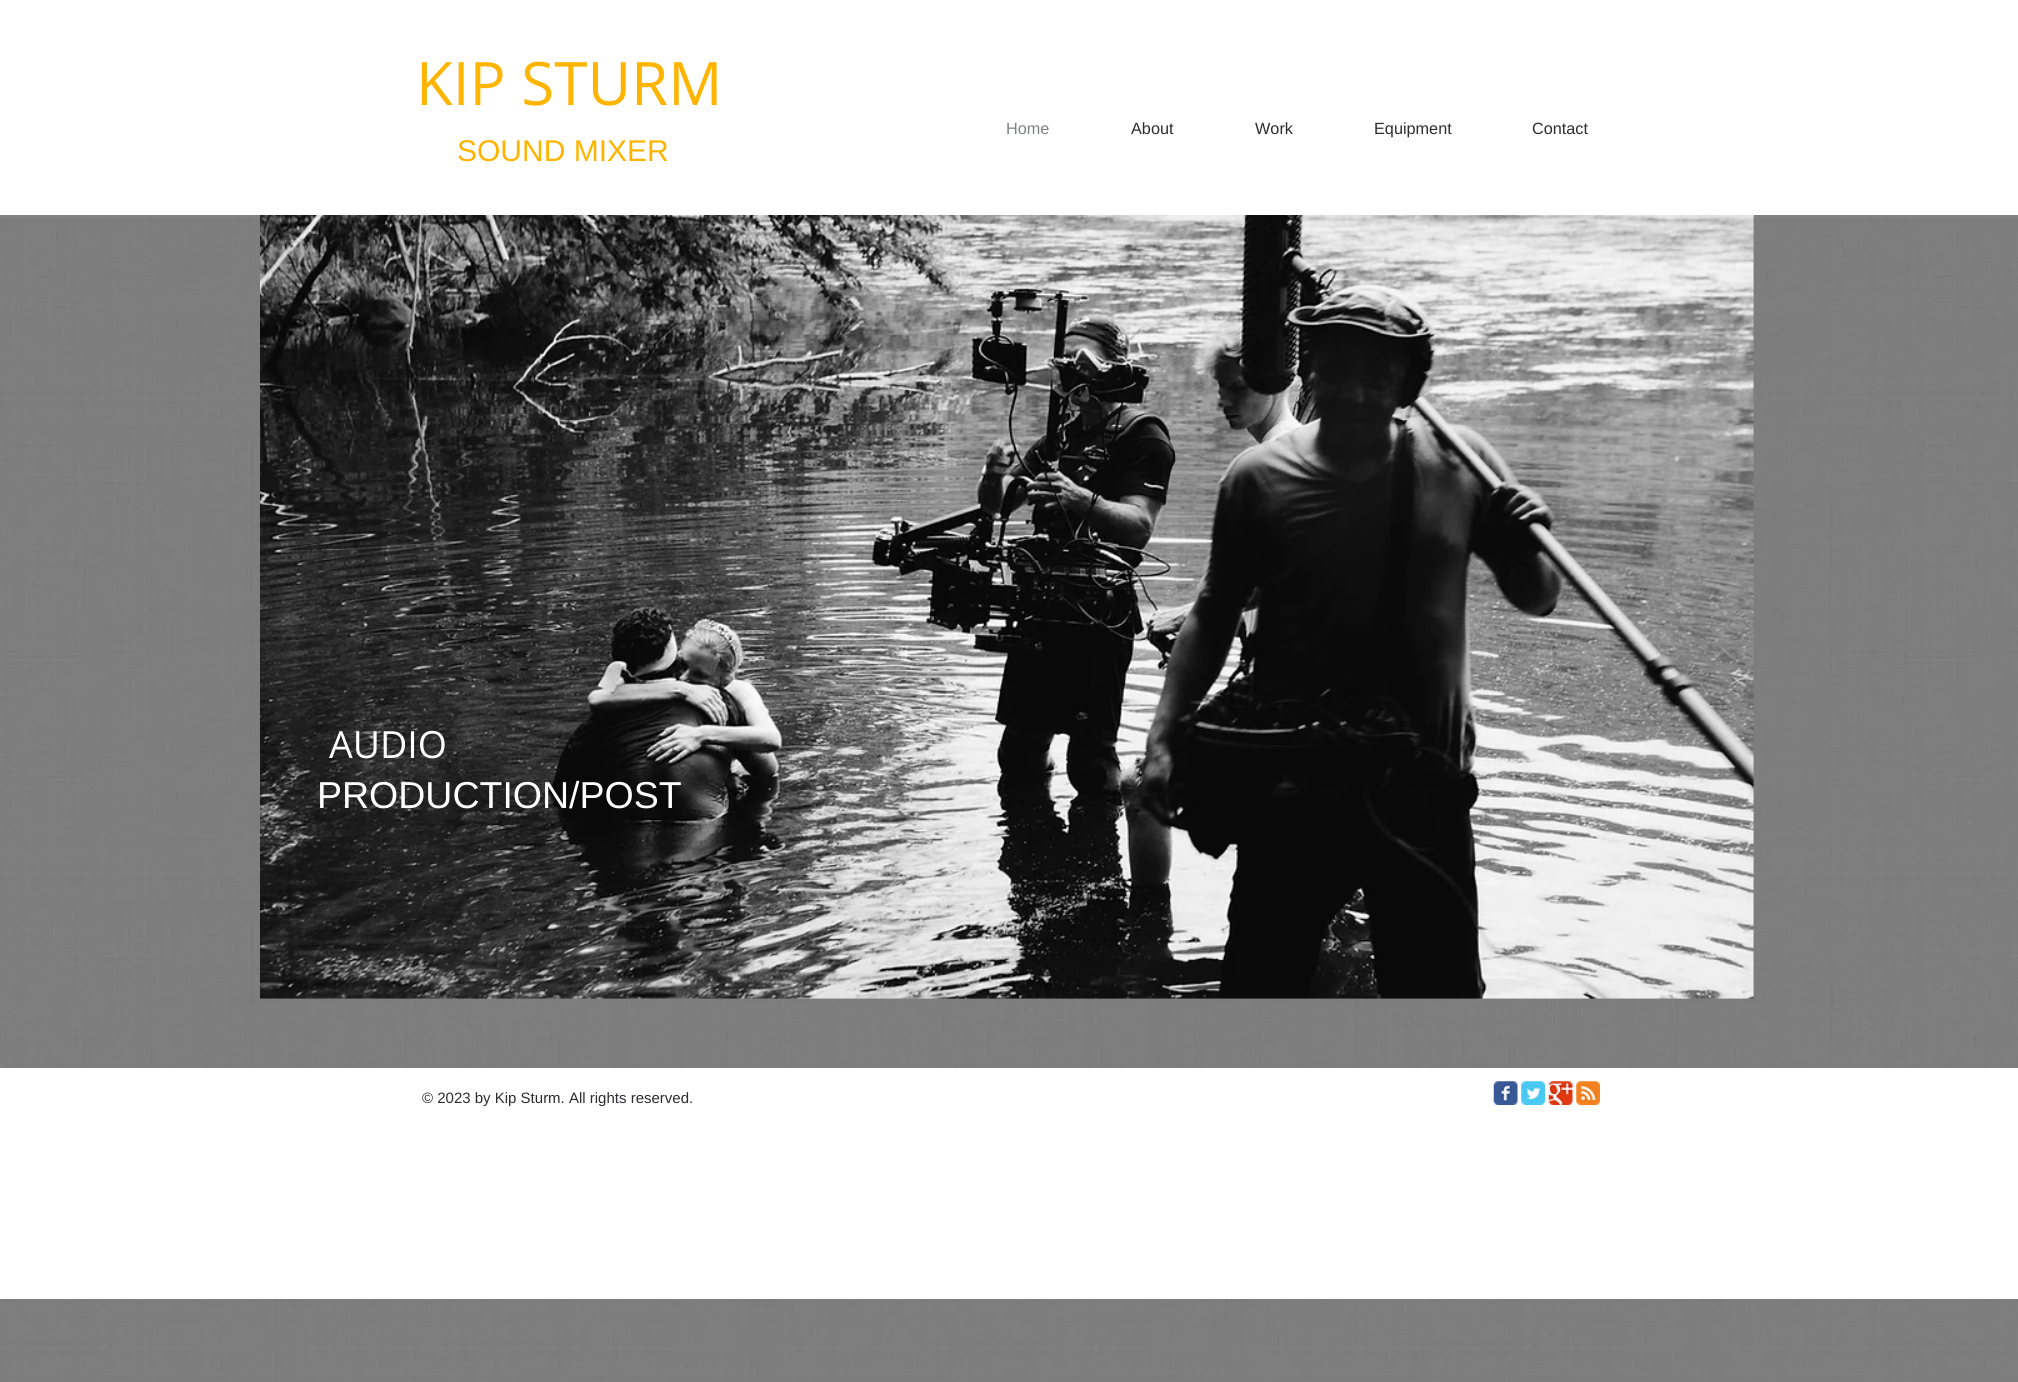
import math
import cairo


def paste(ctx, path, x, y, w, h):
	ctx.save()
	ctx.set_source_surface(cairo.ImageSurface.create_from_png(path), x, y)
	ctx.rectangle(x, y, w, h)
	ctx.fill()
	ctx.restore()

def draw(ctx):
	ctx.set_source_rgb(1, 1, 1)
	ctx.paint()
	ctx.select_font_face('Open Sans')
	ctx.set_font_size(60)
	ctx.set_source_rgb(1, 0.706, 0)
	ctx.move_to(416, 105)
	ctx.show_text('KIP STURM')
	ctx.select_font_face('Liberation Sans')
	ctx.set_font_size(30)
	ctx.move_to(457, 161)
	ctx.show_text('SOUND MIXER')
	ctx.set_font_size(16.25)
	ctx.set_source_rgb(0.502, 0.51, 0.525)
	ctx.move_to(1006, 134)
	ctx.show_text('Home')
	ctx.set_source_rgb(0.176, 0.176, 0.184)
	for x, y, s in [
		(1131, 134, 'About'),
		(1255, 134, 'Work'),
		(1374, 134, 'Equipment'),
		(1532, 134, 'Contact'),
	]:
		ctx.move_to(x, y)
		ctx.show_text(s)
	ctx.set_source_rgb(0.502, 0.51, 0.525)
	ctx.rectangle(0, 215, 2018, 3)
	ctx.fill()
	paste(ctx, 'media/6.png', 0, 218, 2018, 1164)
	paste(ctx, 'media/1.png', 260, 215, 1494, 784)
	ctx.select_font_face('Open Sans')
	ctx.set_font_size(37.5)
	ctx.set_source_rgb(1, 1, 1)
	ctx.move_to(329, 758)
	ctx.show_text('AUDIO')
	ctx.select_font_face('Liberation Sans')
	ctx.move_to(317, 808)
	ctx.show_text('PRODUCTION/POST')
	ctx.rectangle(0, 1068, 2018, 231)
	ctx.fill()
	ctx.set_font_size(15)
	ctx.set_source_rgb(0.176, 0.176, 0.184)
	ctx.move_to(422, 1103)
	ctx.show_text('© 2023 by Kip Sturm. All rights reserved.')
	paste(ctx, 'media/2.png', 1493, 1081, 25, 24)
	paste(ctx, 'media/3.png', 1521, 1081, 24, 24)
	paste(ctx, 'media/4.png', 1548, 1081, 25, 24)
	paste(ctx, 'media/5.png', 1576, 1081, 24, 24)


surface = cairo.ImageSurface(cairo.FORMAT_RGB24, 2018, 1382)
ctx = cairo.Context(surface)
options = cairo.FontOptions()
options.set_hint_metrics(cairo.HINT_METRICS_OFF)
options.set_hint_style(cairo.HINT_STYLE_NONE)
ctx.set_font_options(options)
ctx.set_miter_limit(4)
draw(ctx)
surface.write_to_png('image.png')
